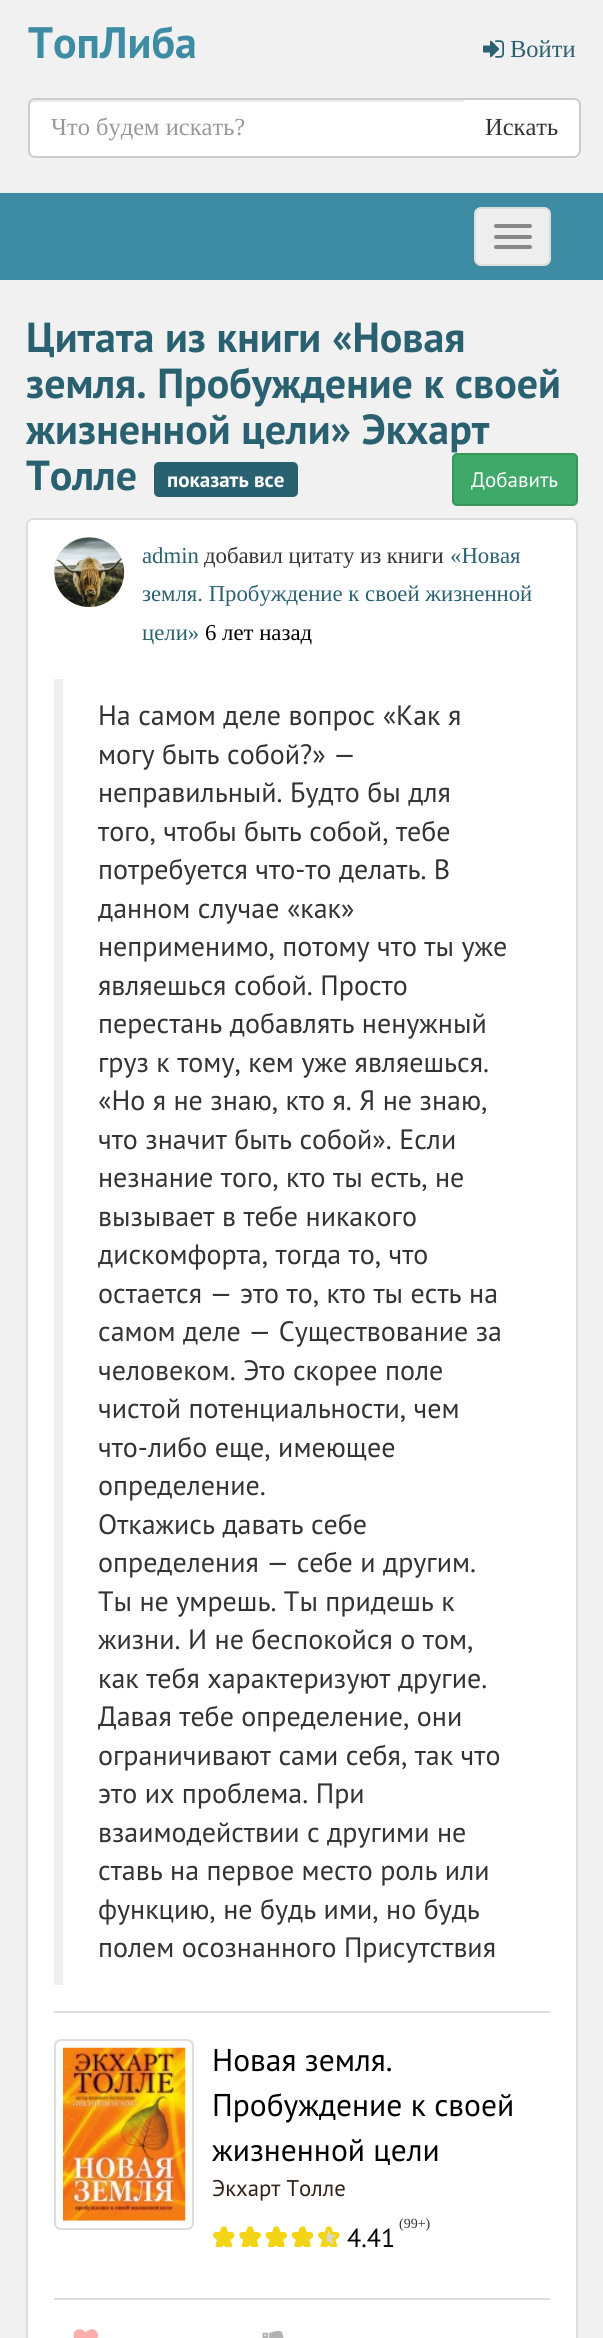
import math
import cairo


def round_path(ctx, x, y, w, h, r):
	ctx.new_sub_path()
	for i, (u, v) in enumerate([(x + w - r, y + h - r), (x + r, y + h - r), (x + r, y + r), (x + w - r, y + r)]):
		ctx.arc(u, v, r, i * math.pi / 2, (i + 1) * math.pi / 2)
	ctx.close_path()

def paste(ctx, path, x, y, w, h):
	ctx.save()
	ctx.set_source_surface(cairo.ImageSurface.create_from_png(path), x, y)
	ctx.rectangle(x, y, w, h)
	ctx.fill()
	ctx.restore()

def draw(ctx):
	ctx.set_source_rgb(0.945, 0.945, 0.945)
	ctx.paint()
	ctx.select_font_face('PT Sans', cairo.FONT_SLANT_NORMAL, cairo.FONT_WEIGHT_BOLD)
	ctx.set_font_size(44)
	ctx.set_source_rgb(0.239, 0.549, 0.639)
	ctx.move_to(28, 58)
	ctx.show_text('ТопЛиба')
	paste(ctx, 'media/1.png', 483, 40, 21, 18)
	ctx.select_font_face('Liberation Serif')
	ctx.set_font_size(24.5)
	ctx.set_source_rgb(0.165, 0.38, 0.443)
	ctx.move_to(510, 57)
	ctx.show_text('Войти')
	ctx.set_source_rgb(1, 1, 1)
	ctx.new_path()
	ctx.move_to(35, 98)
	ctx.line_to(466, 98)
	ctx.line_to(466, 158)
	ctx.line_to(35, 158)
	ctx.curve_to(31, 158, 28, 155, 28, 151)
	ctx.line_to(28, 105)
	ctx.curve_to(28, 101, 31, 98, 35, 98)
	ctx.close_path()
	ctx.fill()
	ctx.set_source_rgb(0.925, 0.925, 0.925)
	ctx.new_path()
	ctx.move_to(35, 102)
	ctx.line_to(464, 102)
	ctx.line_to(464, 100)
	ctx.line_to(35, 100)
	ctx.curve_to(31, 100, 30, 104, 30, 107)
	ctx.curve_to(30, 104, 32, 102, 35, 102)
	ctx.close_path()
	ctx.fill()
	ctx.new_path()
	ctx.move_to(35, 99)
	ctx.line_to(465, 99)
	ctx.line_to(465, 157)
	ctx.line_to(35, 157)
	ctx.curve_to(31.5, 157, 29, 154.5, 29, 151)
	ctx.line_to(29, 105)
	ctx.curve_to(29, 101.5, 31.5, 99, 35, 99)
	ctx.close_path()
	ctx.set_source_rgb(0.8, 0.8, 0.8)
	ctx.stroke()
	ctx.set_source_rgb(0.6, 0.6, 0.6)
	ctx.move_to(51, 135)
	ctx.show_text('Что будем искать?')
	ctx.set_source_rgb(1, 1, 1)
	ctx.new_path()
	ctx.move_to(464, 98)
	ctx.line_to(574, 98)
	ctx.curve_to(578, 98, 581, 101, 581, 105)
	ctx.line_to(581, 151)
	ctx.curve_to(581, 155, 578, 158, 574, 158)
	ctx.line_to(464, 158)
	ctx.close_path()
	ctx.fill()
	ctx.set_source_rgb(0.8, 0.8, 0.8)
	ctx.set_fill_rule(cairo.FILL_RULE_EVEN_ODD)
	ctx.new_path()
	ctx.move_to(464, 98)
	ctx.line_to(574, 98)
	ctx.curve_to(578, 98, 581, 101, 581, 105)
	ctx.line_to(581, 150)
	ctx.curve_to(581, 154, 578, 158, 574, 158)
	ctx.line_to(464, 158)
	ctx.close_path()
	ctx.move_to(464, 100)
	ctx.line_to(574, 100)
	ctx.curve_to(577, 100, 579, 102, 579, 105)
	ctx.line_to(579, 150)
	ctx.curve_to(579, 153, 577, 156, 574, 156)
	ctx.line_to(464, 156)
	ctx.close_path()
	ctx.fill()
	ctx.set_source_rgb(0.2, 0.2, 0.2)
	ctx.move_to(485, 135)
	ctx.show_text('Искать')
	ctx.set_source_rgb(0.239, 0.549, 0.639)
	ctx.rectangle(0, 193, 603, 87)
	ctx.fill()
	ctx.set_source_rgb(0.933, 0.933, 0.933)
	round_path(ctx, 475, 208, 75, 57, 6)
	ctx.fill_preserve()
	ctx.set_source_rgb(0.867, 0.867, 0.867)
	ctx.stroke()
	ctx.set_source_rgb(0.533, 0.533, 0.533)
	round_path(ctx, 494, 224, 38, 4, 2)
	ctx.fill()
	round_path(ctx, 494, 235, 38, 4, 2)
	ctx.fill()
	round_path(ctx, 494, 245, 38, 4, 2)
	ctx.fill()
	ctx.select_font_face('PT Sans', cairo.FONT_SLANT_NORMAL, cairo.FONT_WEIGHT_BOLD)
	ctx.set_font_size(42)
	ctx.set_source_rgb(0.165, 0.38, 0.443)
	for x, y, s in [
		(26, 352, 'Цитата из книги «Новая'),
		(26, 398, 'земля. Пробуждение к своей'),
		(26, 444, 'жизненной цели» Экхарт'),
		(26, 490, 'Толле'),
	]:
		ctx.move_to(x, y)
		ctx.show_text(s)
	round_path(ctx, 154, 462, 144, 35, 5)
	ctx.fill()
	ctx.set_font_size(21)
	ctx.set_source_rgb(1, 1, 1)
	ctx.move_to(167, 487)
	ctx.show_text('показать все')
	ctx.set_source_rgb(0.247, 0.663, 0.412)
	round_path(ctx, 453, 454, 124, 51, 4)
	ctx.fill_preserve()
	ctx.set_source_rgb(0.22, 0.588, 0.365)
	ctx.stroke()
	ctx.select_font_face('PT Sans')
	ctx.set_source_rgb(1, 1, 1)
	ctx.move_to(471, 487)
	ctx.show_text('Добавить')
	round_path(ctx, 27, 519, 550, 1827, 6)
	ctx.fill_preserve()
	ctx.set_source_rgb(0.867, 0.867, 0.867)
	ctx.stroke()
	ctx.set_source_rgb(0.847, 0.831, 0.816)
	ctx.arc(89, 572, 35, 0, 2 * math.pi)
	ctx.fill()
	paste(ctx, 'media/2.png', 54, 537, 71, 71)
	ctx.select_font_face('Liberation Serif')
	ctx.set_font_size(22.75)
	ctx.set_source_rgb(0.165, 0.38, 0.443)
	ctx.move_to(142, 563)
	ctx.show_text('admin')
	ctx.set_source_rgb(0.2, 0.2, 0.2)
	ctx.move_to(204, 563)
	ctx.show_text('добавил цитату из книги')
	ctx.set_source_rgb(0.165, 0.38, 0.443)
	for x, y, s in [
		(450, 563, '«Новая'),
		(142, 601, 'земля. Пробуждение к своей жизненной'),
		(142, 640, 'цели»'),
	]:
		ctx.move_to(x, y)
		ctx.show_text(s)
	ctx.set_source_rgb(0, 0, 0)
	ctx.move_to(205, 640)
	ctx.show_text('6 лет назад')
	ctx.set_source_rgb(0.933, 0.933, 0.933)
	ctx.rectangle(54, 679, 9, 1306)
	ctx.fill()
	ctx.select_font_face('PT Sans')
	ctx.set_font_size(28)
	ctx.set_source_rgb(0.2, 0.2, 0.2)
	for x, y, s in [
		(98, 725, 'На самом деле вопрос «Как я'),
		(98, 764, 'могу быть собой?» —'),
		(98, 802, 'неправильный. Будто бы для'),
		(98, 841, 'того, чтобы быть собой, тебе'),
		(98, 879, 'потребуется что‑то делать. В'),
		(98, 918, 'данном случае «как»'),
		(98, 956, 'неприменимо, потому что ты уже'),
		(98, 995, 'являешься собой. Просто'),
		(98, 1033, 'перестань добавлять ненужный'),
		(98, 1072, 'груз к тому, кем уже являешься.'),
		(98, 1110, '«Но я не знаю, кто я. Я не знаю,'),
		(98, 1149, 'что значит быть собой». Если'),
		(98, 1187, 'незнание того, кто ты есть, не'),
		(98, 1226, 'вызывает в тебе никакого'),
		(98, 1264, 'дискомфорта, тогда то, что'),
		(98, 1303, 'остается — это то, кто ты есть на'),
		(98, 1341, 'самом деле — Существование за'),
		(98, 1380, 'человеком. Это скорее поле'),
		(98, 1418, 'чистой потенциальности, чем'),
		(98, 1457, 'что‑либо еще, имеющее'),
		(98, 1495, 'определение.'),
		(98, 1534, 'Откажись давать себе'),
		(98, 1572, 'определения — себе и другим.'),
		(98, 1611, 'Ты не умрешь. Ты придешь к'),
		(98, 1649, 'жизни. И не беспокойся о том,'),
		(98, 1688, 'как тебя характеризуют другие.'),
		(98, 1726, 'Давая тебе определение, они'),
		(98, 1765, 'ограничивают сами себя, так что'),
		(98, 1803, 'это их проблема. При'),
		(98, 1842, 'взаимодействии с другими не'),
		(98, 1880, 'ставь на первое место роль или'),
		(98, 1919, 'функцию, не будь ими, но будь'),
		(98, 1957, 'полем осознанного Присутствия'),
	]:
		ctx.move_to(x, y)
		ctx.show_text(s)
	ctx.set_source_rgb(0.867, 0.867, 0.867)
	ctx.rectangle(54, 2011, 496, 2)
	ctx.fill()
	round_path(ctx, 55, 2040, 138, 189, 6)
	ctx.stroke()
	paste(ctx, 'media/3.png', 63, 2047, 123, 174)
	ctx.set_font_size(31.5)
	ctx.set_source_rgb(0, 0, 0)
	for x, y, s in [
		(212, 2071, 'Новая земля.'),
		(212, 2116, 'Пробуждение к своей'),
		(212, 2161, 'жизненной цели'),
	]:
		ctx.move_to(x, y)
		ctx.show_text(s)
	ctx.set_font_size(22.75)
	ctx.set_source_rgb(0.188, 0.129, 0.098)
	ctx.move_to(212, 2196)
	ctx.show_text('Экхарт Толле')
	ctx.select_font_face('Liberation Serif')
	ctx.set_font_size(14)
	ctx.set_source_rgb(0.2, 0.2, 0.2)
	ctx.move_to(399, 2228)
	ctx.show_text('(99+)')
	paste(ctx, 'media/4.png', 213, 2226, 21, 21)
	paste(ctx, 'media/5.png', 239, 2226, 22, 21)
	paste(ctx, 'media/6.png', 265, 2226, 22, 21)
	paste(ctx, 'media/7.png', 291, 2226, 22, 21)
	paste(ctx, 'media/8.png', 318, 2226, 22, 21)
	ctx.select_font_face('PT Sans')
	ctx.set_font_size(26)
	ctx.set_source_rgb(0, 0, 0)
	ctx.move_to(347, 2247)
	ctx.show_text('4.41')
	ctx.set_source_rgb(0.867, 0.867, 0.867)
	ctx.rectangle(54, 2298, 496, 2)
	ctx.fill()
	paste(ctx, 'media/9.png', 73, 2329, 25, 9)
	paste(ctx, 'media/10.png', 262, 2331, 22, 7)


surface = cairo.ImageSurface(cairo.FORMAT_RGB24, 603, 2338)
ctx = cairo.Context(surface)
options = cairo.FontOptions()
options.set_hint_metrics(cairo.HINT_METRICS_OFF)
options.set_hint_style(cairo.HINT_STYLE_NONE)
ctx.set_font_options(options)
ctx.set_miter_limit(4)
draw(ctx)
surface.write_to_png('image.png')
